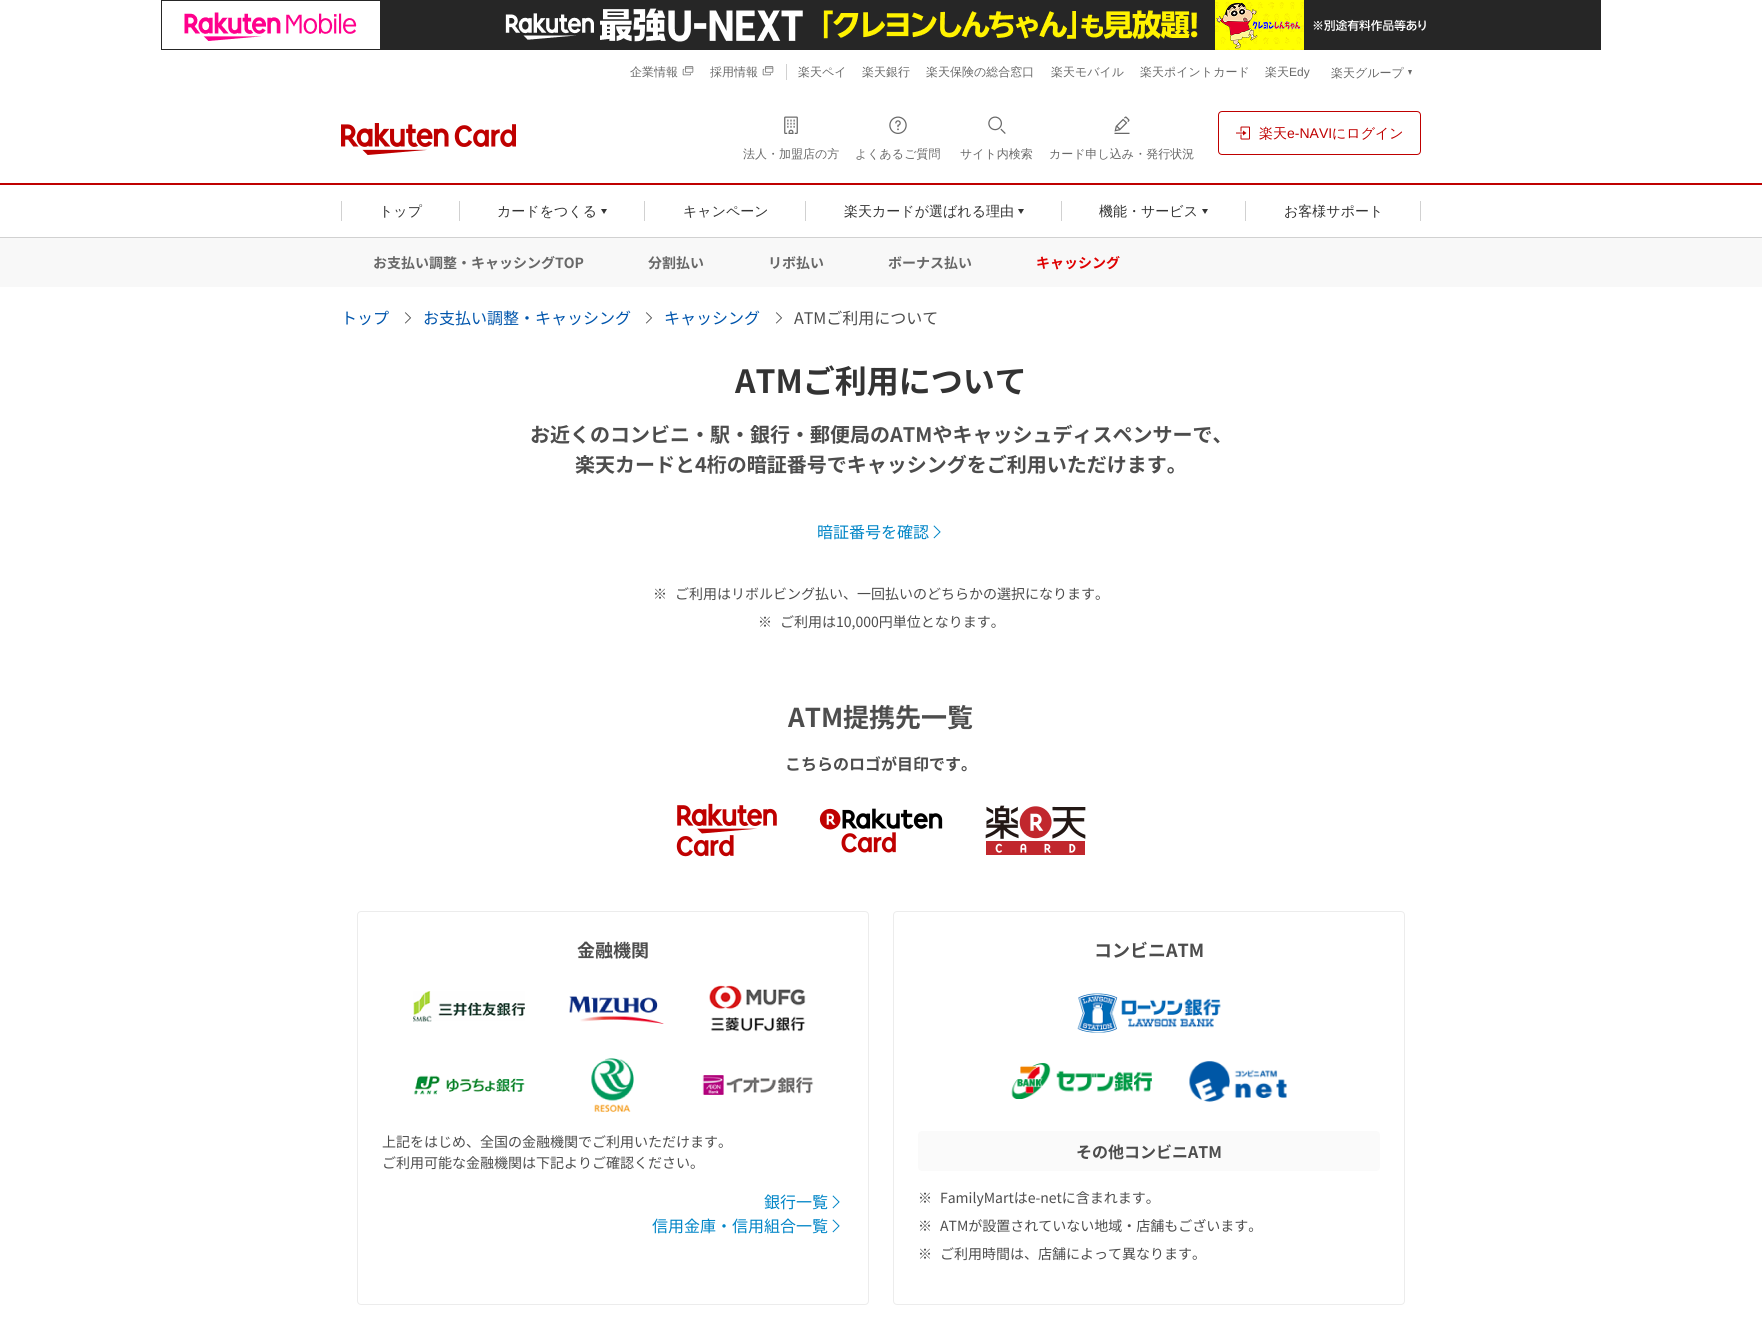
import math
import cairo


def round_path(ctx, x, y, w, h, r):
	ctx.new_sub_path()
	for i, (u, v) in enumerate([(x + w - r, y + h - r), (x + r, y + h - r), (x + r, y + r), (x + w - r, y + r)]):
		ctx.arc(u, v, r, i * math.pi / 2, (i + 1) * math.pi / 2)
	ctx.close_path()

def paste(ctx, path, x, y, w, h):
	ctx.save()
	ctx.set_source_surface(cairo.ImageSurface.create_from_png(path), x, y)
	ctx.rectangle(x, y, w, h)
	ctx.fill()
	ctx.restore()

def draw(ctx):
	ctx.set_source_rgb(1, 1, 1)
	ctx.paint()
	paste(ctx, 'media/1.png', 161, 0, 1440, 50)
	ctx.select_font_face('WenQuanYi Zen Hei Medium')
	ctx.set_font_size(12)
	ctx.set_source_rgb(0.408, 0.408, 0.408)
	ctx.move_to(630, 76)
	ctx.show_text('企業情報')
	paste(ctx, 'media/2.png', 682, 66, 12, 10)
	ctx.move_to(710, 76)
	ctx.show_text('採用情報')
	paste(ctx, 'media/2.png', 762, 66, 12, 10)
	ctx.set_source_rgb(0.82, 0.82, 0.82)
	ctx.rectangle(786, 64, 1, 16)
	ctx.fill()
	ctx.set_source_rgb(0.408, 0.408, 0.408)
	for x, y, s in [
		(798, 76, '楽天ペイ'),
		(862, 76, '楽天銀行'),
		(926, 76, '楽天保険の総合窓口'),
		(1051, 76, '楽天モバイル'),
		(1140, 76, '楽天ポイントカード'),
		(1265, 76, '楽天'),
	]:
		ctx.move_to(x, y)
		ctx.show_text(s)
	ctx.select_font_face('Liberation Sans')
	ctx.move_to(1289, 76)
	ctx.show_text('Edy')
	ctx.select_font_face('WenQuanYi Zen Hei Medium')
	ctx.move_to(1331, 77)
	ctx.show_text('楽天グループ')
	ctx.new_path()
	ctx.move_to(1408, 70)
	ctx.line_to(1412, 70)
	ctx.line_to(1410, 75)
	ctx.close_path()
	ctx.fill()
	ctx.set_source_rgb(0.749, 0, 0)
	ctx.rectangle(0, 183, 1762, 2)
	ctx.fill()
	paste(ctx, 'media/3.png', 341, 123, 175, 32)
	round_path(ctx, 1218.5, 111.5, 202, 43, 3.5)
	ctx.set_line_width(1)
	ctx.stroke()
	paste(ctx, 'media/4.png', 1236, 126, 14, 14)
	ctx.set_font_size(14)
	ctx.move_to(1259, 138)
	ctx.show_text('楽天')
	ctx.select_font_face('Liberation Sans')
	ctx.move_to(1287, 138)
	ctx.show_text('e-NAVI')
	ctx.select_font_face('WenQuanYi Zen Hei Medium')
	ctx.move_to(1332, 138)
	ctx.show_text('にログイン')
	paste(ctx, 'media/5.png', 784, 116, 14, 18)
	ctx.set_font_size(12)
	ctx.set_source_rgb(0.408, 0.408, 0.408)
	ctx.move_to(743, 158)
	ctx.show_text('法人・加盟店の方')
	paste(ctx, 'media/6.png', 889, 116, 18, 18)
	ctx.move_to(855, 158)
	ctx.show_text('よくあるご質問')
	paste(ctx, 'media/7.png', 988, 116, 18, 18)
	ctx.move_to(960, 158)
	ctx.show_text('サイト内検索')
	paste(ctx, 'media/8.png', 1114, 116, 16, 18)
	ctx.move_to(1049, 158)
	ctx.show_text('カード申し込み・発行状況')
	ctx.set_source_rgb(0.82, 0.82, 0.82)
	ctx.rectangle(0, 237, 1762, 1)
	ctx.fill()
	ctx.rectangle(341, 201, 1, 20)
	ctx.fill()
	ctx.set_font_size(14)
	ctx.set_source_rgb(0.2, 0.2, 0.2)
	ctx.move_to(379, 216)
	ctx.show_text('トップ')
	ctx.set_source_rgb(0.82, 0.82, 0.82)
	ctx.rectangle(459, 201, 1, 20)
	ctx.fill()
	ctx.set_source_rgb(0.2, 0.2, 0.2)
	ctx.move_to(497, 216)
	ctx.show_text('カードをつくる')
	ctx.new_path()
	ctx.move_to(601, 209)
	ctx.line_to(607, 209)
	ctx.line_to(604, 214)
	ctx.close_path()
	ctx.fill()
	ctx.set_source_rgb(0.82, 0.82, 0.82)
	ctx.rectangle(644, 201, 1, 20)
	ctx.fill()
	ctx.set_source_rgb(0.2, 0.2, 0.2)
	ctx.move_to(683, 216)
	ctx.show_text('キャンペーン')
	ctx.set_source_rgb(0.82, 0.82, 0.82)
	ctx.rectangle(805, 201, 1, 20)
	ctx.fill()
	ctx.set_source_rgb(0.2, 0.2, 0.2)
	ctx.move_to(844, 216)
	ctx.show_text('楽天カードが選ばれる理由')
	ctx.new_path()
	ctx.move_to(1018, 209)
	ctx.line_to(1024, 209)
	ctx.line_to(1021, 214)
	ctx.close_path()
	ctx.fill()
	ctx.set_source_rgb(0.82, 0.82, 0.82)
	ctx.rectangle(1061, 201, 1, 20)
	ctx.fill()
	ctx.set_source_rgb(0.2, 0.2, 0.2)
	ctx.move_to(1099, 216)
	ctx.show_text('機能・サービス')
	ctx.new_path()
	ctx.move_to(1202, 209)
	ctx.line_to(1208, 209)
	ctx.line_to(1205, 214)
	ctx.close_path()
	ctx.fill()
	ctx.set_source_rgb(0.82, 0.82, 0.82)
	ctx.rectangle(1245, 201, 1, 20)
	ctx.fill()
	ctx.set_source_rgb(0.2, 0.2, 0.2)
	ctx.move_to(1284, 216)
	ctx.show_text('お客様サポート')
	ctx.set_source_rgb(0.82, 0.82, 0.82)
	ctx.rectangle(1420, 201, 1, 20)
	ctx.fill()
	ctx.set_source_rgb(0.969, 0.969, 0.969)
	ctx.rectangle(0, 238, 1762, 49)
	ctx.fill()
	ctx.select_font_face('Noto Sans JP', cairo.FONT_SLANT_NORMAL, cairo.FONT_WEIGHT_BOLD)
	ctx.set_source_rgb(0.408, 0.408, 0.408)
	for x, y, s in [
		(373, 268, 'お支払い調整・キャッシングTOP'),
		(648, 268, '分割払い'),
		(768, 268, 'リボ払い'),
		(888, 268, 'ボーナス払い'),
	]:
		ctx.move_to(x, y)
		ctx.show_text(s)
	ctx.set_source_rgb(0.875, 0.004, 0.004)
	ctx.move_to(1036, 268)
	ctx.show_text('キャッシング')
	ctx.select_font_face('Noto Sans JP')
	ctx.set_font_size(16)
	ctx.set_source_rgb(0, 0.333, 0.675)
	ctx.move_to(341, 324)
	ctx.show_text('トップ')
	paste(ctx, 'media/9.png', 404, 312, 8, 12)
	ctx.move_to(423, 324)
	ctx.show_text('お支払い調整・キャッシング')
	paste(ctx, 'media/9.png', 645, 312, 8, 12)
	ctx.move_to(664, 324)
	ctx.show_text('キャッシング')
	paste(ctx, 'media/9.png', 775, 312, 8, 12)
	ctx.set_source_rgb(0.302, 0.302, 0.302)
	ctx.move_to(794, 324)
	ctx.show_text('ATMご利用について')
	ctx.select_font_face('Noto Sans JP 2', cairo.FONT_SLANT_NORMAL, cairo.FONT_WEIGHT_BOLD)
	ctx.set_font_size(32)
	ctx.set_source_rgb(0.2, 0.2, 0.2)
	ctx.move_to(735, 393)
	ctx.show_text('ATMご利用について')
	ctx.set_font_size(20)
	ctx.set_source_rgb(0.302, 0.302, 0.302)
	ctx.move_to(530, 442)
	ctx.show_text('お近くのコンビニ・駅・銀行・郵便局のATMやキャッシュディスペンサーで、')
	ctx.move_to(575, 472)
	ctx.show_text('楽天カードと4桁の暗証番号でキャッシングをご利用いただけます。')
	ctx.select_font_face('Noto Sans JP')
	ctx.set_font_size(16)
	ctx.set_source_rgb(0, 0.522, 0.78)
	ctx.move_to(817, 538)
	ctx.show_text('暗証番号を確認')
	paste(ctx, 'media/10.png', 933, 525, 8, 14)
	ctx.set_font_size(14)
	ctx.set_source_rgb(0.302, 0.302, 0.302)
	for x, y, s in [
		(653, 599, '※'),
		(675, 599, 'ご利用はリボルビング払い、一回払いのどちらかの選択になります。'),
		(758, 627, '※'),
		(780, 627, 'ご利用は10,000円単位となります。'),
	]:
		ctx.move_to(x, y)
		ctx.show_text(s)
	ctx.select_font_face('Noto Sans JP 2', cairo.FONT_SLANT_NORMAL, cairo.FONT_WEIGHT_BOLD)
	ctx.set_font_size(26)
	ctx.move_to(788, 727)
	ctx.show_text('ATM提携先一覧')
	ctx.set_font_size(16)
	ctx.move_to(785, 770)
	ctx.show_text('こちらのロゴが目印です。')
	paste(ctx, 'media/11.png', 676, 803, 101, 54)
	paste(ctx, 'media/12.png', 819, 808, 124, 45)
	paste(ctx, 'media/13.png', 985, 805, 101, 50)
	round_path(ctx, 357.5, 911.5, 511, 393, 3.5)
	ctx.set_source_rgb(0.922, 0.922, 0.922)
	ctx.stroke()
	ctx.set_font_size(18)
	ctx.set_source_rgb(0.302, 0.302, 0.302)
	ctx.move_to(577, 957)
	ctx.show_text('金融機関')
	paste(ctx, 'media/14.png', 413, 985, 401, 127)
	ctx.select_font_face('Noto Sans JP')
	ctx.set_font_size(14)
	ctx.move_to(382, 1147)
	ctx.show_text('上記をはじめ、全国の金融機関でご利用いただけます。')
	ctx.move_to(382, 1168)
	ctx.show_text('ご利用可能な金融機関は下記よりご確認ください。')
	ctx.set_font_size(16)
	ctx.set_source_rgb(0, 0.522, 0.78)
	ctx.move_to(764, 1208)
	ctx.show_text('銀行一覧')
	paste(ctx, 'media/10.png', 832, 1195, 8, 14)
	ctx.move_to(652, 1232)
	ctx.show_text('信用金庫・信用組合一覧')
	paste(ctx, 'media/10.png', 832, 1219, 8, 14)
	round_path(ctx, 893.5, 911.5, 511, 393, 3.5)
	ctx.set_source_rgb(0.922, 0.922, 0.922)
	ctx.stroke()
	ctx.select_font_face('Noto Sans JP 2', cairo.FONT_SLANT_NORMAL, cairo.FONT_WEIGHT_BOLD)
	ctx.set_font_size(18)
	ctx.set_source_rgb(0.302, 0.302, 0.302)
	ctx.move_to(1094, 957)
	ctx.show_text('コンビニATM')
	paste(ctx, 'media/15.png', 1077, 993, 144, 40)
	paste(ctx, 'media/16.png', 1011, 1061, 276, 41)
	ctx.set_source_rgb(0.98, 0.98, 0.98)
	round_path(ctx, 918, 1131, 462, 40, 4)
	ctx.fill()
	ctx.set_font_size(16)
	ctx.set_source_rgb(0.302, 0.302, 0.302)
	ctx.move_to(1076, 1158)
	ctx.show_text('その他コンビニATM')
	ctx.select_font_face('Noto Sans JP')
	ctx.set_font_size(14)
	for x, y, s in [
		(918, 1203, '※'),
		(940, 1203, 'FamilyMartはe-netに含まれます。'),
		(918, 1231, '※'),
		(940, 1231, 'ATMが設置されていない地域・店舗もございます。'),
		(918, 1259, '※'),
		(940, 1259, 'ご利用時間は、店舗によって異なります。'),
	]:
		ctx.move_to(x, y)
		ctx.show_text(s)


surface = cairo.ImageSurface(cairo.FORMAT_RGB24, 1762, 1330)
ctx = cairo.Context(surface)
options = cairo.FontOptions()
options.set_hint_metrics(cairo.HINT_METRICS_OFF)
options.set_hint_style(cairo.HINT_STYLE_NONE)
ctx.set_font_options(options)
ctx.set_miter_limit(4)
draw(ctx)
surface.write_to_png('image.png')
